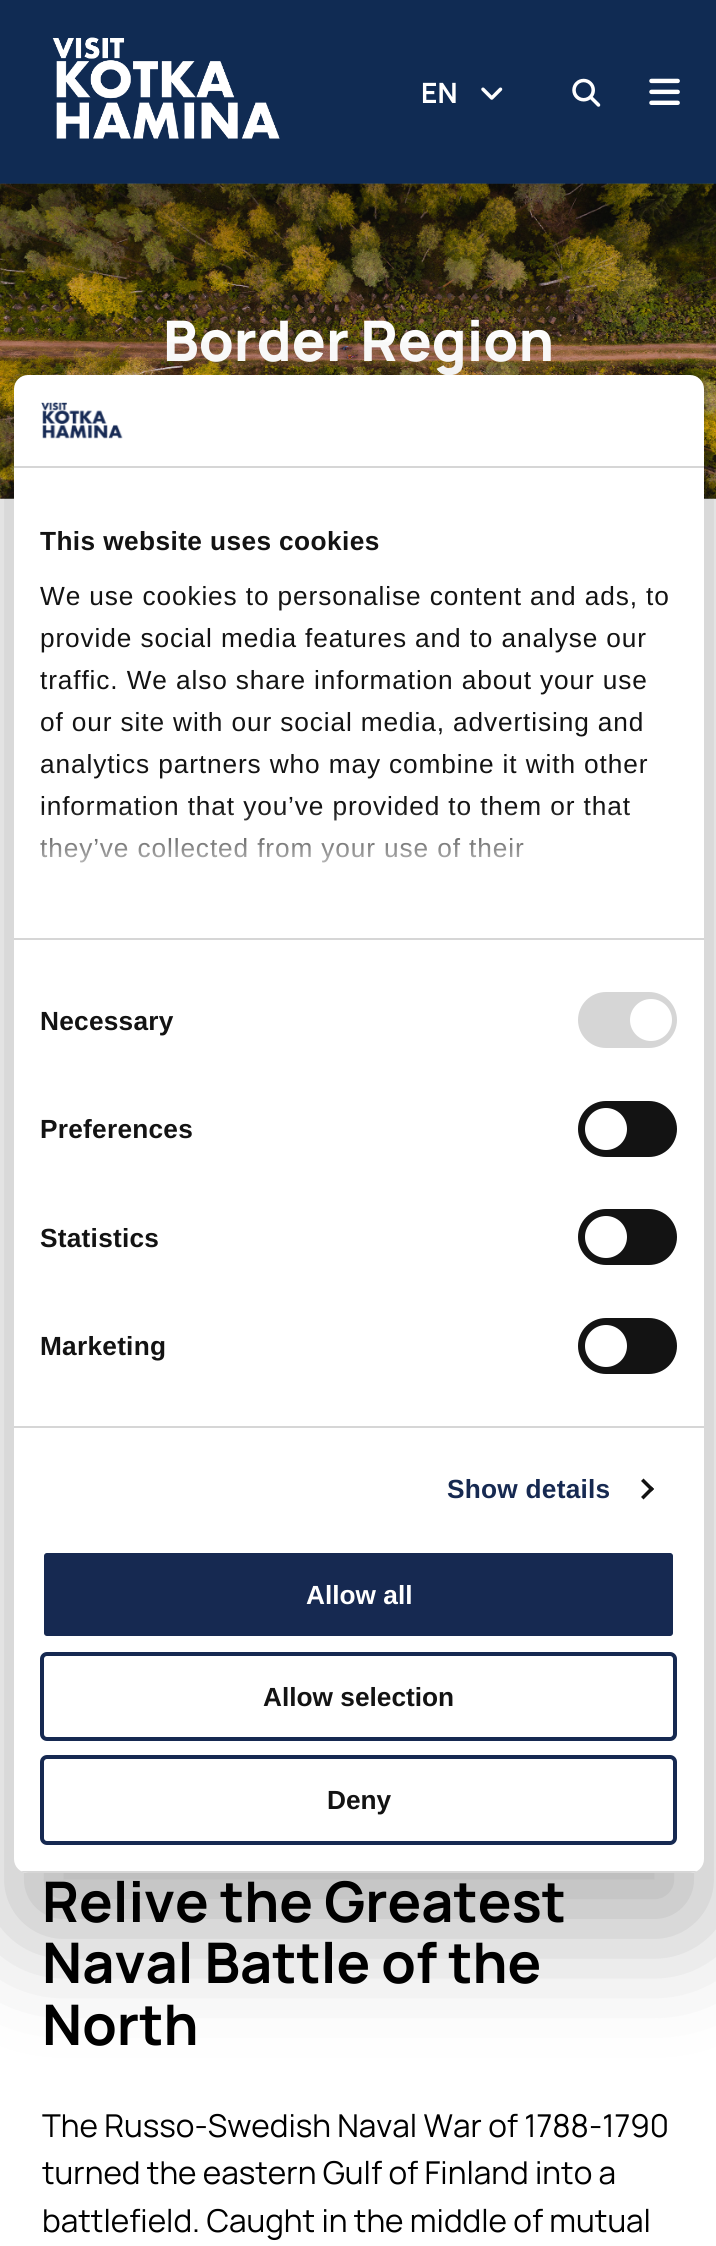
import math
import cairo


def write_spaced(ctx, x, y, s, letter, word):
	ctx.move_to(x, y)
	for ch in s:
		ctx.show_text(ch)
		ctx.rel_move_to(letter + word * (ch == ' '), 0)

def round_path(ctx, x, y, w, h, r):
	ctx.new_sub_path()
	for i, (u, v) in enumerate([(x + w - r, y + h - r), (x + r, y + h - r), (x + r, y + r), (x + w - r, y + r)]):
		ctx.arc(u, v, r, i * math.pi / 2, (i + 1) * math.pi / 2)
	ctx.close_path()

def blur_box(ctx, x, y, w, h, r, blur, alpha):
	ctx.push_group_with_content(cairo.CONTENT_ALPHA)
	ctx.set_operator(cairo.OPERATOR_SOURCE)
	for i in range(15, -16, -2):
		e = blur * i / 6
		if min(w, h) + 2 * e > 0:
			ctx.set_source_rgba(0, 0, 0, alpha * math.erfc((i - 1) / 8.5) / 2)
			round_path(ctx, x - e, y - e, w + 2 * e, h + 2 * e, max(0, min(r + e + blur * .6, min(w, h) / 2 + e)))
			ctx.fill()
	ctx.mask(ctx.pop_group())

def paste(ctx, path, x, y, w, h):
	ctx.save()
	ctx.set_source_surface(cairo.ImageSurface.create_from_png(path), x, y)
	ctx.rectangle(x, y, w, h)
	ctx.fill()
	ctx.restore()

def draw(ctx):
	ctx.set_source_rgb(1, 1, 1)
	ctx.paint()
	ctx.set_source_rgb(0.063, 0.169, 0.325)
	ctx.rectangle(0, 0, 716, 184)
	ctx.fill()
	paste(ctx, 'media/1.png', 52, 37, 228, 102)
	ctx.select_font_face('Manrope', cairo.FONT_SLANT_NORMAL, cairo.FONT_WEIGHT_BOLD)
	ctx.set_font_size(28)
	ctx.set_source_rgb(1, 1, 1)
	ctx.move_to(421, 103)
	ctx.show_text('EN')
	paste(ctx, 'media/2.png', 481, 87, 22, 13)
	paste(ctx, 'media/3.png', 572, 78, 29, 29)
	paste(ctx, 'media/4.png', 649, 78, 31, 27)
	paste(ctx, 'media/5.png', 0, 183, 716, 316)
	gradient = cairo.LinearGradient(359, 184, 359, 499)
	gradient.add_color_stop_rgba(0, 0, 0, 0, 0.4)
	gradient.add_color_stop_rgba(0.8, 0, 0, 0, 0)
	ctx.set_source(gradient)
	ctx.rectangle(0, 184, 716, 238)
	ctx.fill()
	ctx.select_font_face('Manrope ExtraBold')
	ctx.set_font_size(56)
	ctx.set_source_rgb(1, 1, 1)
	ctx.move_to(163, 361)
	ctx.show_text('Border Region')
	ctx.select_font_face('Manrope', cairo.FONT_SLANT_NORMAL, cairo.FONT_WEIGHT_BOLD)
	ctx.set_source_rgb(0, 0, 0)
	for x, y, s in [
		(42, 1922, 'Relive the Greatest'),
		(42, 1983, 'Naval Battle of the'),
		(42, 2045, 'North'),
	]:
		ctx.move_to(x, y)
		ctx.show_text(s)
	ctx.select_font_face('Manrope')
	ctx.set_font_size(31.5)
	for x, y, s in [
		(42, 2137, 'The Russo-Swedish Naval War of 1788-1790'),
		(42, 2184, 'turned the eastern Gulf of Finland into a'),
		(42, 2232, 'battlefield. Caught in the middle of mutual'),
	]:
		ctx.move_to(x, y)
		ctx.show_text(s)
	ctx.set_source_rgb(0, 0, 0)
	blur_box(ctx, 14, 431, 690, 1498, 14, 59.5, 0.3)
	ctx.set_source_rgb(1, 1, 1)
	round_path(ctx, 14, 375, 690, 1498, 14)
	ctx.fill()
	ctx.set_source_rgb(0.839, 0.839, 0.839)
	ctx.rectangle(14, 466, 690, 2)
	ctx.fill()
	paste(ctx, 'media/6.png', 41, 402, 82, 37)
	ctx.rectangle(14, 938, 690, 2)
	ctx.fill()
	ctx.select_font_face('Liberation Sans', cairo.FONT_SLANT_NORMAL, cairo.FONT_WEIGHT_BOLD)
	ctx.set_font_size(26.25)
	ctx.set_source_rgb(0.078, 0.078, 0.078)
	write_spaced(ctx, 40, 550, 'This website uses cookies', 0.4, 0)
	ctx.select_font_face('Liberation Sans')
	for x, y, s in [
		(40, 605, 'We use cookies to personalise content and ads, to'),
		(40, 647, 'provide social media features and to analyse our'),
		(40, 689, 'traffic. We also share information about your use'),
		(40, 731, 'of our site with our social media, advertising and'),
		(40, 773, 'analytics partners who may combine it with other'),
		(40, 815, 'information that you’ve provided to them or that'),
		(40, 857, 'they’ve collected from your use of their'),
	]:
		write_spaced(ctx, x, y, s, 0.88, 0)
	gradient = cairo.LinearGradient(347, 938, 347, 807)
	gradient.add_color_stop_rgba(0, 1, 1, 1, 1)
	gradient.add_color_stop_rgba(0.5, 1, 1, 1, 0.8)
	gradient.add_color_stop_rgba(1, 1, 1, 1, 0)
	ctx.set_source(gradient)
	ctx.rectangle(40, 809, 590, 54)
	ctx.fill()
	ctx.set_source_rgb(0.839, 0.839, 0.839)
	ctx.rectangle(14, 1426, 690, 2)
	ctx.fill()
	ctx.select_font_face('Liberation Sans', cairo.FONT_SLANT_NORMAL, cairo.FONT_WEIGHT_BOLD)
	ctx.set_source_rgb(0.078, 0.078, 0.078)
	write_spaced(ctx, 40, 1030, 'Necessary', 0.25, 0)
	ctx.set_source_rgb(0.839, 0.839, 0.839)
	round_path(ctx, 578, 992, 99, 56, 28)
	ctx.fill()
	ctx.set_source_rgb(1, 1, 1)
	ctx.arc(651, 1020, 21, 0, 2 * math.pi)
	ctx.fill()
	ctx.set_source_rgb(0.078, 0.078, 0.078)
	write_spaced(ctx, 40, 1138, 'Preferences', 0.25, 0)
	round_path(ctx, 578, 1101, 99, 56, 28)
	ctx.fill()
	ctx.set_source_rgb(1, 1, 1)
	ctx.arc(606, 1129, 21, 0, 2 * math.pi)
	ctx.fill()
	ctx.set_source_rgb(0.078, 0.078, 0.078)
	write_spaced(ctx, 40, 1247, 'Statistics', 0.25, 0)
	round_path(ctx, 578, 1209, 99, 56, 28)
	ctx.fill()
	ctx.set_source_rgb(1, 1, 1)
	ctx.arc(606, 1237, 21, 0, 2 * math.pi)
	ctx.fill()
	ctx.set_source_rgb(0.078, 0.078, 0.078)
	write_spaced(ctx, 40, 1355, 'Marketing', 0.25, 0)
	round_path(ctx, 578, 1318, 99, 56, 28)
	ctx.fill()
	ctx.set_source_rgb(1, 1, 1)
	ctx.arc(606, 1346, 21, 0, 2 * math.pi)
	ctx.fill()
	ctx.set_source_rgb(0.086, 0.161, 0.318)
	write_spaced(ctx, 447, 1498, 'Show details', 0.25, 0)
	ctx.set_source_rgb(0.078, 0.078, 0.078)
	ctx.new_path()
	ctx.move_to(643.5, 1478.5)
	ctx.line_to(654, 1489)
	ctx.line_to(651.5, 1491.5)
	ctx.line_to(641, 1481)
	ctx.close_path()
	ctx.fill()
	ctx.new_path()
	ctx.move_to(651.5, 1486.5)
	ctx.line_to(654, 1489)
	ctx.line_to(643.5, 1499.5)
	ctx.line_to(641, 1497)
	ctx.close_path()
	ctx.fill()
	ctx.save()
	round_path(ctx, 14, 375, 690, 1498, 14)
	ctx.clip()
	ctx.set_source_rgb(0.839, 0.839, 0.839)
	ctx.rectangle(14, 1871, 690, 2)
	ctx.fill()
	ctx.restore()
	ctx.set_source_rgb(0.086, 0.161, 0.318)
	round_path(ctx, 42, 1551, 633, 87, 5)
	ctx.fill_preserve()
	ctx.set_source_rgb(1, 1, 1)
	ctx.set_line_width(4)
	ctx.stroke()
	ctx.move_to(306, 1604)
	ctx.show_text('Allow all')
	round_path(ctx, 42, 1654, 633, 85, 5)
	ctx.set_source_rgb(0.086, 0.161, 0.318)
	ctx.stroke()
	ctx.set_source_rgb(0.078, 0.078, 0.078)
	ctx.move_to(263, 1706)
	ctx.show_text('Allow selection')
	round_path(ctx, 42, 1757, 633, 86, 5)
	ctx.set_source_rgb(0.086, 0.161, 0.318)
	ctx.stroke()
	ctx.set_source_rgb(0.078, 0.078, 0.078)
	ctx.move_to(327, 1809)
	ctx.show_text('Deny')


surface = cairo.ImageSurface(cairo.FORMAT_RGB24, 716, 2246)
ctx = cairo.Context(surface)
options = cairo.FontOptions()
options.set_hint_metrics(cairo.HINT_METRICS_OFF)
options.set_hint_style(cairo.HINT_STYLE_NONE)
ctx.set_font_options(options)
ctx.set_miter_limit(4)
draw(ctx)
surface.write_to_png('image.png')
